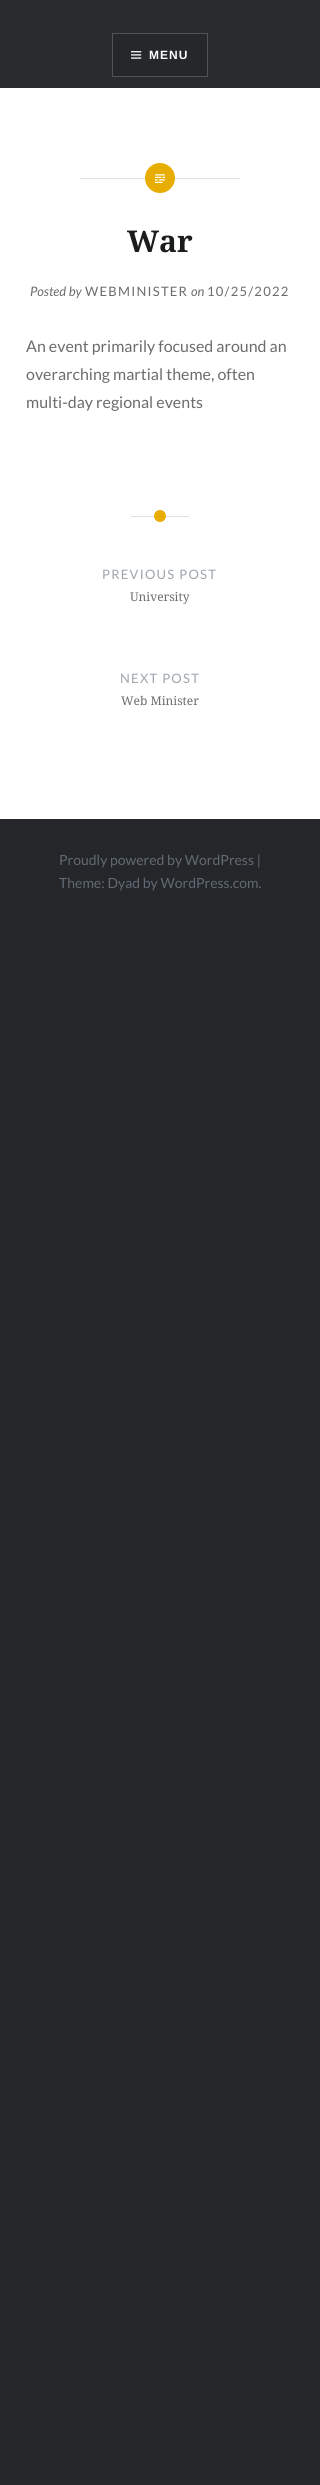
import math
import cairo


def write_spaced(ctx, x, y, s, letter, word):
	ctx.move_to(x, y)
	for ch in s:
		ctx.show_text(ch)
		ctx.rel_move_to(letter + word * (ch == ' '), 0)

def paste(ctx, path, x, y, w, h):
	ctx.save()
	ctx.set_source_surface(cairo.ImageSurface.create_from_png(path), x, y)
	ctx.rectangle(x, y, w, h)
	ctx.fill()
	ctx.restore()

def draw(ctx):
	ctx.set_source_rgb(0.141, 0.149, 0.161)
	ctx.paint()
	ctx.set_source_rgb(1, 1, 1)
	ctx.rectangle(0, 88, 320, 731)
	ctx.fill()
	ctx.set_source_rgb(0.161, 0.173, 0.184)
	ctx.rectangle(0, 0, 320, 88)
	ctx.fill()
	ctx.set_source_rgb(0.145, 0.157, 0.165)
	ctx.rectangle(112.5, 33.5, 95, 43)
	ctx.fill_preserve()
	ctx.set_source_rgb(0.318, 0.325, 0.333)
	ctx.set_line_width(1)
	ctx.stroke()
	paste(ctx, 'media/1.png', 131, 51, 11, 8)
	ctx.select_font_face('Liberation Sans', cairo.FONT_SLANT_NORMAL, cairo.FONT_WEIGHT_BOLD)
	ctx.set_font_size(12)
	ctx.set_source_rgb(1, 1, 1)
	write_spaced(ctx, 149, 59, 'MENU', 1, 0)
	ctx.set_source_rgb(0.878, 0.878, 0.878)
	ctx.rectangle(80, 178, 160, 1)
	ctx.fill()
	ctx.set_source_rgb(0.906, 0.682, 0.004)
	ctx.arc(160, 178, 15, 0, 2 * math.pi)
	ctx.fill()
	paste(ctx, 'media/2.png', 155, 174, 10, 9)
	ctx.select_font_face('Noto Serif', cairo.FONT_SLANT_NORMAL, cairo.FONT_WEIGHT_BOLD)
	ctx.set_font_size(30)
	ctx.set_source_rgb(0.102, 0.11, 0.118)
	ctx.move_to(127, 252)
	ctx.show_text('War')
	ctx.select_font_face('Lato', cairo.FONT_SLANT_ITALIC)
	ctx.set_font_size(13)
	ctx.set_source_rgb(0.416, 0.424, 0.431)
	ctx.move_to(30, 296)
	ctx.show_text('Posted by')
	ctx.select_font_face('Lato')
	write_spaced(ctx, 85, 296, 'WEBMINISTER', 1.25, 0)
	ctx.select_font_face('Lato', cairo.FONT_SLANT_ITALIC)
	ctx.move_to(191, 296)
	ctx.show_text('on')
	ctx.select_font_face('Lato')
	write_spaced(ctx, 207, 296, '10/25/2022', 1.25, 0)
	ctx.set_font_size(16)
	for x, y, s in [
		(26, 352, 'An event primarily focused around an'),
		(26, 380, 'overarching martial theme, often'),
		(26, 408, 'multi-day regional events'),
	]:
		ctx.move_to(x, y)
		ctx.show_text(s)
	ctx.set_source_rgb(0.878, 0.878, 0.878)
	ctx.rectangle(131, 516, 58, 1)
	ctx.fill()
	ctx.set_source_rgb(0.906, 0.682, 0.004)
	ctx.arc(160, 516, 6, 0, 2 * math.pi)
	ctx.fill()
	ctx.set_font_size(13)
	ctx.set_source_rgb(0.616, 0.647, 0.678)
	write_spaced(ctx, 102, 579, 'PREVIOUS POST', 1.25, 0)
	ctx.select_font_face('Noto Serif')
	ctx.set_font_size(12)
	ctx.set_source_rgb(0.416, 0.424, 0.431)
	ctx.move_to(130, 601)
	ctx.show_text('University')
	ctx.select_font_face('Lato')
	ctx.set_font_size(13)
	ctx.set_source_rgb(0.616, 0.647, 0.678)
	write_spaced(ctx, 120, 683, 'NEXT POST', 1.25, 0)
	ctx.select_font_face('Noto Serif')
	ctx.set_font_size(12)
	ctx.set_source_rgb(0.416, 0.424, 0.431)
	ctx.move_to(121, 705)
	ctx.show_text('Web Minister')
	ctx.select_font_face('Lato')
	ctx.set_font_size(14)
	ctx.set_source_rgb(0.38, 0.416, 0.455)
	ctx.move_to(59, 865)
	ctx.show_text('Proudly powered by WordPress |')
	ctx.move_to(59, 888)
	ctx.show_text('Theme: Dyad by WordPress.com.')


surface = cairo.ImageSurface(cairo.FORMAT_RGB24, 320, 2485)
ctx = cairo.Context(surface)
options = cairo.FontOptions()
options.set_hint_metrics(cairo.HINT_METRICS_OFF)
options.set_hint_style(cairo.HINT_STYLE_NONE)
ctx.set_font_options(options)
ctx.set_miter_limit(4)
draw(ctx)
surface.write_to_png('image.png')
